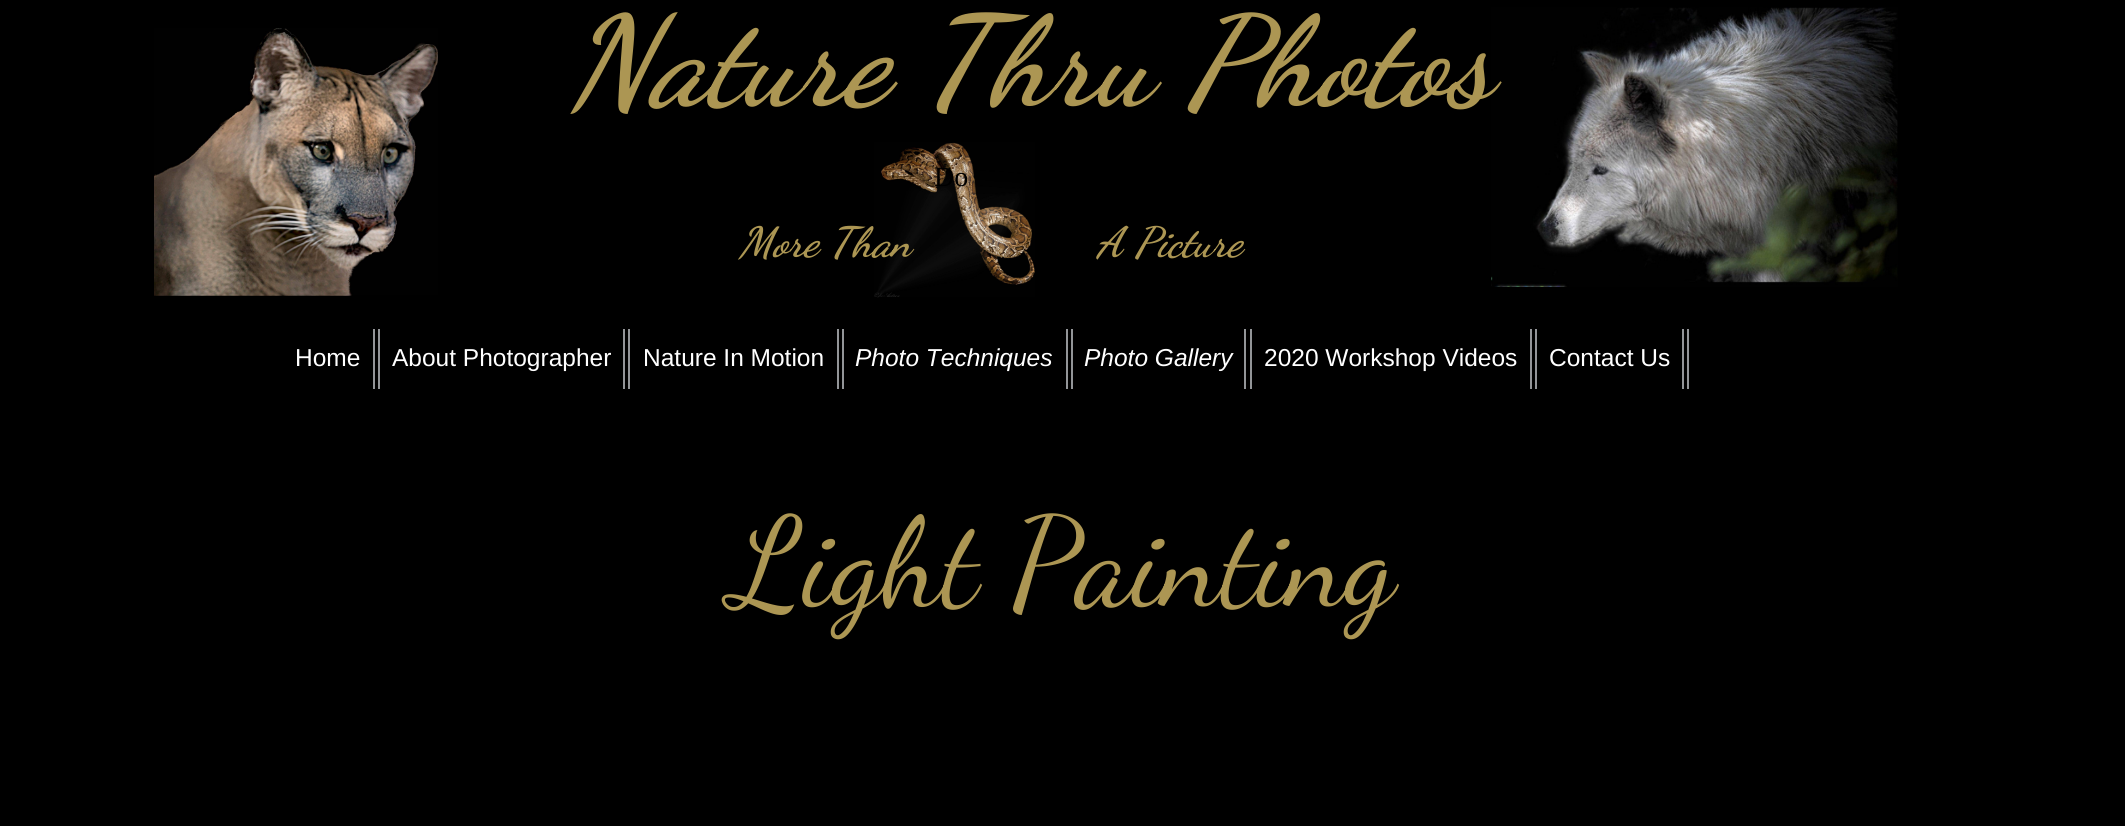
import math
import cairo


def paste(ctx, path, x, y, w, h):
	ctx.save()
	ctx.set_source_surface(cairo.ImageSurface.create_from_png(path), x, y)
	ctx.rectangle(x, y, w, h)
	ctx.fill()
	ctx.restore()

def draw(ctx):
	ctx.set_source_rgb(0, 0, 0)
	ctx.paint()
	paste(ctx, 'media/1.png', 154, 28, 284, 268)
	paste(ctx, 'media/2.png', 1491, 7, 407, 280)
	ctx.select_font_face('Dancing Script', cairo.FONT_SLANT_ITALIC, cairo.FONT_WEIGHT_BOLD)
	ctx.set_font_size(126)
	ctx.set_source_rgb(0.675, 0.588, 0.325)
	ctx.move_to(566, 103)
	ctx.show_text('Nature Thru Photos')
	paste(ctx, 'media/3.png', 874, 142, 161, 156)
	ctx.select_font_face('Liberation Serif')
	ctx.set_font_size(28)
	ctx.set_source_rgb(0, 0, 0)
	ctx.move_to(934, 186)
	ctx.show_text('Do')
	ctx.select_font_face('Dancing Script', cairo.FONT_SLANT_ITALIC, cairo.FONT_WEIGHT_BOLD)
	ctx.set_font_size(42)
	ctx.set_source_rgb(0.675, 0.588, 0.325)
	ctx.move_to(739, 256)
	ctx.show_text('More Than                 A Picture')
	ctx.select_font_face('Liberation Sans')
	ctx.set_font_size(24.5)
	ctx.set_source_rgb(1, 1, 1)
	ctx.move_to(295, 366)
	ctx.show_text('Home')
	ctx.set_source_rgb(0.576, 0.584, 0.596)
	ctx.rectangle(373, 329, 2, 60)
	ctx.fill()
	ctx.rectangle(378, 329, 2, 60)
	ctx.fill()
	ctx.set_source_rgb(1, 1, 1)
	ctx.move_to(392, 366)
	ctx.show_text('About Photographer')
	ctx.set_source_rgb(0.576, 0.584, 0.596)
	ctx.rectangle(623, 329, 2, 60)
	ctx.fill()
	ctx.rectangle(628, 329, 2, 60)
	ctx.fill()
	ctx.set_source_rgb(1, 1, 1)
	ctx.move_to(643, 366)
	ctx.show_text('Nature In Motion')
	ctx.set_source_rgb(0.576, 0.584, 0.596)
	ctx.rectangle(837, 329, 2, 60)
	ctx.fill()
	ctx.rectangle(842, 329, 2, 60)
	ctx.fill()
	ctx.select_font_face('Liberation Sans', cairo.FONT_SLANT_ITALIC)
	ctx.set_source_rgb(1, 1, 1)
	ctx.move_to(855, 366)
	ctx.show_text('Photo Techniques')
	ctx.set_source_rgb(0.576, 0.584, 0.596)
	ctx.rectangle(1066, 329, 2, 60)
	ctx.fill()
	ctx.rectangle(1071, 329, 2, 60)
	ctx.fill()
	ctx.set_source_rgb(1, 1, 1)
	ctx.move_to(1084, 366)
	ctx.show_text('Photo Gallery')
	ctx.set_source_rgb(0.576, 0.584, 0.596)
	ctx.rectangle(1244, 329, 2, 60)
	ctx.fill()
	ctx.rectangle(1250, 329, 2, 60)
	ctx.fill()
	ctx.select_font_face('Liberation Sans')
	ctx.set_source_rgb(1, 1, 1)
	ctx.move_to(1264, 366)
	ctx.show_text('2020 Workshop Videos')
	ctx.set_source_rgb(0.576, 0.584, 0.596)
	ctx.rectangle(1530, 329, 2, 60)
	ctx.fill()
	ctx.rectangle(1535, 329, 2, 60)
	ctx.fill()
	ctx.set_source_rgb(1, 1, 1)
	ctx.move_to(1549, 366)
	ctx.show_text('Contact Us')
	ctx.set_source_rgb(0.576, 0.584, 0.596)
	ctx.rectangle(1682, 329, 2, 60)
	ctx.fill()
	ctx.rectangle(1687, 329, 2, 60)
	ctx.fill()
	ctx.select_font_face('Dancing Script')
	ctx.set_font_size(126)
	ctx.set_source_rgb(0.675, 0.588, 0.325)
	ctx.move_to(731, 604)
	ctx.show_text('Light Painting')


surface = cairo.ImageSurface(cairo.FORMAT_RGB24, 2125, 826)
ctx = cairo.Context(surface)
options = cairo.FontOptions()
options.set_hint_metrics(cairo.HINT_METRICS_OFF)
options.set_hint_style(cairo.HINT_STYLE_NONE)
ctx.set_font_options(options)
ctx.set_miter_limit(4)
draw(ctx)
surface.write_to_png('image.png')
